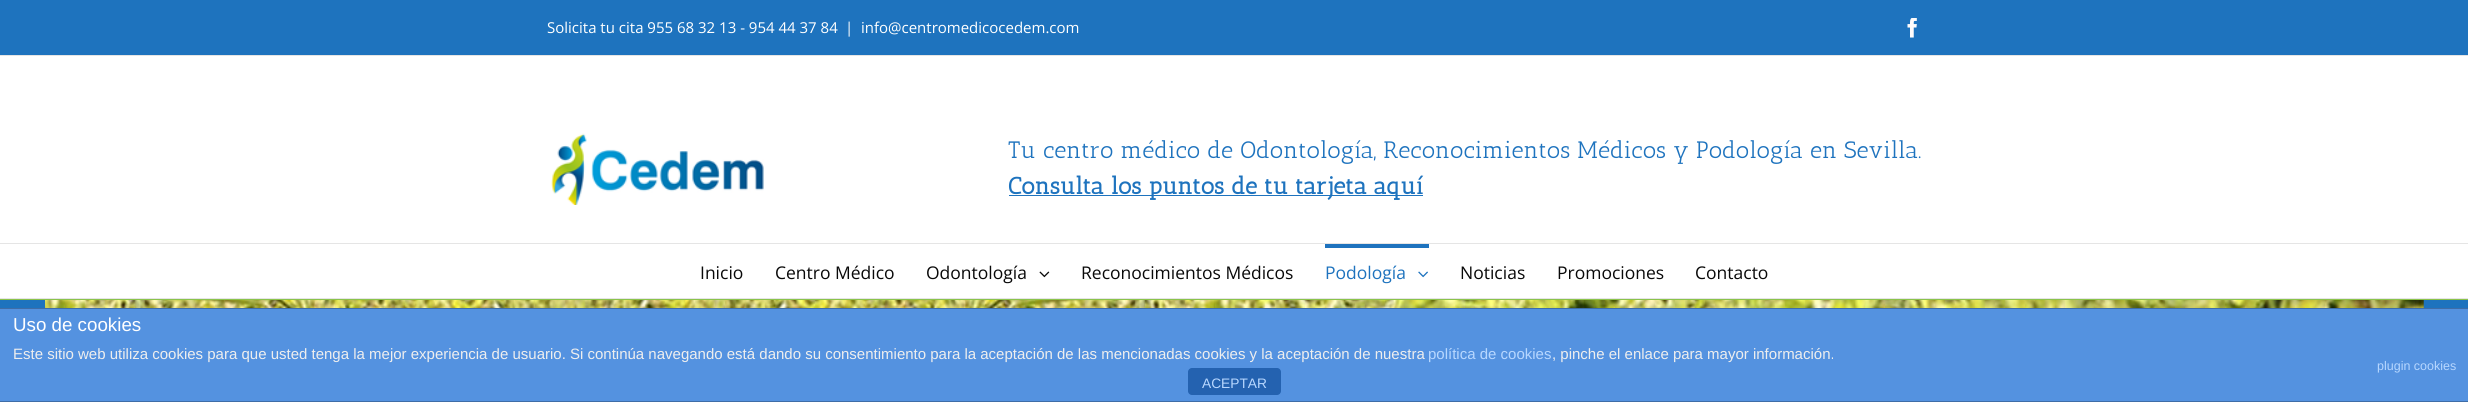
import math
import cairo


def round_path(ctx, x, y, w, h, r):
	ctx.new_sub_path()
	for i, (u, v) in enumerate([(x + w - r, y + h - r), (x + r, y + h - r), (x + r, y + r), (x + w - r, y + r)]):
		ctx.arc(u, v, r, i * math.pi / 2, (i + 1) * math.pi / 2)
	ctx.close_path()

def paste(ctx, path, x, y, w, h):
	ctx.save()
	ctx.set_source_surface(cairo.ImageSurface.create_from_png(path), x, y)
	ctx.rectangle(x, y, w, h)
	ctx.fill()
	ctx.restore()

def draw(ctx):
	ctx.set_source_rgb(1, 1, 1)
	ctx.paint()
	ctx.set_source_rgb(0.118, 0.451, 0.745)
	ctx.rectangle(0, 0, 2468, 55)
	ctx.fill()
	ctx.set_source_rgb(0.898, 0.898, 0.898)
	ctx.rectangle(0, 55, 2468, 1)
	ctx.fill()
	ctx.select_font_face('Open Sans')
	ctx.set_font_size(15)
	ctx.set_source_rgb(1, 1, 1)
	for x, y, s in [
		(547, 33, 'Solicita tu cita 955 68 32 13 - 954 44 37 84'),
		(845, 33, '|'),
		(861, 33, 'info@centromedicocedem.com'),
	]:
		ctx.move_to(x, y)
		ctx.show_text(s)
	paste(ctx, 'media/1.png', 1907, 18, 10, 20)
	ctx.set_source_rgb(0.898, 0.898, 0.898)
	ctx.rectangle(0, 243, 2468, 1)
	ctx.fill()
	paste(ctx, 'media/2.png', 551, 133, 213, 72)
	ctx.select_font_face('Antic Slab')
	ctx.set_font_size(23.75)
	ctx.set_source_rgb(0.118, 0.451, 0.745)
	ctx.move_to(1008, 158)
	ctx.show_text('Tu centro médico de Odontología, Reconocimientos Médicos y Podología en Sevilla.')
	ctx.rectangle(1009, 195, 414, 1)
	ctx.fill()
	ctx.select_font_face('Antic Slab', cairo.FONT_SLANT_NORMAL, cairo.FONT_WEIGHT_BOLD)
	ctx.move_to(1008, 194)
	ctx.show_text('Consulta los puntos de tu tarjeta aquí')
	ctx.set_source_rgb(0.898, 0.898, 0.898)
	ctx.rectangle(0, 298, 2468, 1)
	ctx.fill()
	ctx.select_font_face('Open Sans')
	ctx.set_font_size(17.5)
	ctx.set_source_rgb(0.039, 0.039, 0.039)
	for x, y, s in [
		(700, 279, 'Inicio'),
		(775, 279, 'Centro Médico'),
		(926, 279, 'Odontología'),
	]:
		ctx.move_to(x, y)
		ctx.show_text(s)
	paste(ctx, 'media/3.png', 1039, 271, 11, 7)
	ctx.move_to(1081, 279)
	ctx.show_text('Reconocimientos Médicos')
	ctx.set_source_rgb(0.118, 0.451, 0.745)
	ctx.rectangle(1325, 244, 104, 4)
	ctx.fill()
	ctx.move_to(1325, 279)
	ctx.show_text('Podología')
	paste(ctx, 'media/4.png', 1418, 271, 10, 7)
	ctx.set_source_rgb(0.039, 0.039, 0.039)
	for x, y, s in [
		(1460, 279, 'Noticias'),
		(1557, 279, 'Promociones'),
		(1695, 279, 'Contacto'),
	]:
		ctx.move_to(x, y)
		ctx.show_text(s)
	ctx.set_source_rgb(0.118, 0.451, 0.745)
	ctx.rectangle(0, 300, 2468, 8)
	ctx.fill()
	paste(ctx, 'media/5.png', 45, 300, 2379, 8)
	ctx.set_source_rgb(0.545, 0.765, 0.29)
	ctx.rectangle(0, 299, 2468, 1)
	ctx.fill()
	ctx.set_source_rgb(0.329, 0.573, 0.878)
	ctx.rectangle(0, 309, 2468, 92)
	ctx.fill()
	ctx.set_source_rgb(0.247, 0.427, 0.655)
	ctx.rectangle(0, 308, 2468, 1)
	ctx.rectangle(0, 401, 2468, 1)
	ctx.fill()
	ctx.select_font_face('Liberation Sans')
	ctx.set_font_size(18.75)
	ctx.set_source_rgb(1, 1, 1)
	ctx.move_to(13, 331)
	ctx.show_text('Uso de cookies')
	ctx.set_font_size(15)
	ctx.set_source_rgb(0.933, 0.933, 0.933)
	ctx.move_to(13, 359)
	ctx.show_text('Este sitio web utiliza cookies para que usted tenga la mejor experiencia de usuario. Si continúa navegando está dando su consentimiento para la aceptación de las mencionadas cookies y la aceptación de nuestra')
	ctx.set_source_rgb(0.718, 0.843, 1)
	ctx.move_to(1428, 359)
	ctx.show_text('política de cookies')
	ctx.set_source_rgb(0.933, 0.933, 0.933)
	ctx.move_to(1552, 359)
	ctx.show_text(', pinche el enlace para mayor información.')
	ctx.set_font_size(12.5)
	ctx.set_source_rgb(0.718, 0.843, 1)
	ctx.move_to(2377, 370)
	ctx.show_text('plugin cookies')
	ctx.set_source_rgb(0.141, 0.384, 0.69)
	round_path(ctx, 1188, 368, 93, 27, 4)
	ctx.fill()
	ctx.set_font_size(13.75)
	ctx.set_source_rgb(0.718, 0.843, 1)
	ctx.move_to(1202, 388)
	ctx.show_text('ACEPTAR')


surface = cairo.ImageSurface(cairo.FORMAT_RGB24, 2468, 402)
ctx = cairo.Context(surface)
options = cairo.FontOptions()
options.set_hint_metrics(cairo.HINT_METRICS_OFF)
options.set_hint_style(cairo.HINT_STYLE_NONE)
ctx.set_font_options(options)
ctx.set_miter_limit(4)
draw(ctx)
surface.write_to_png('image.png')
